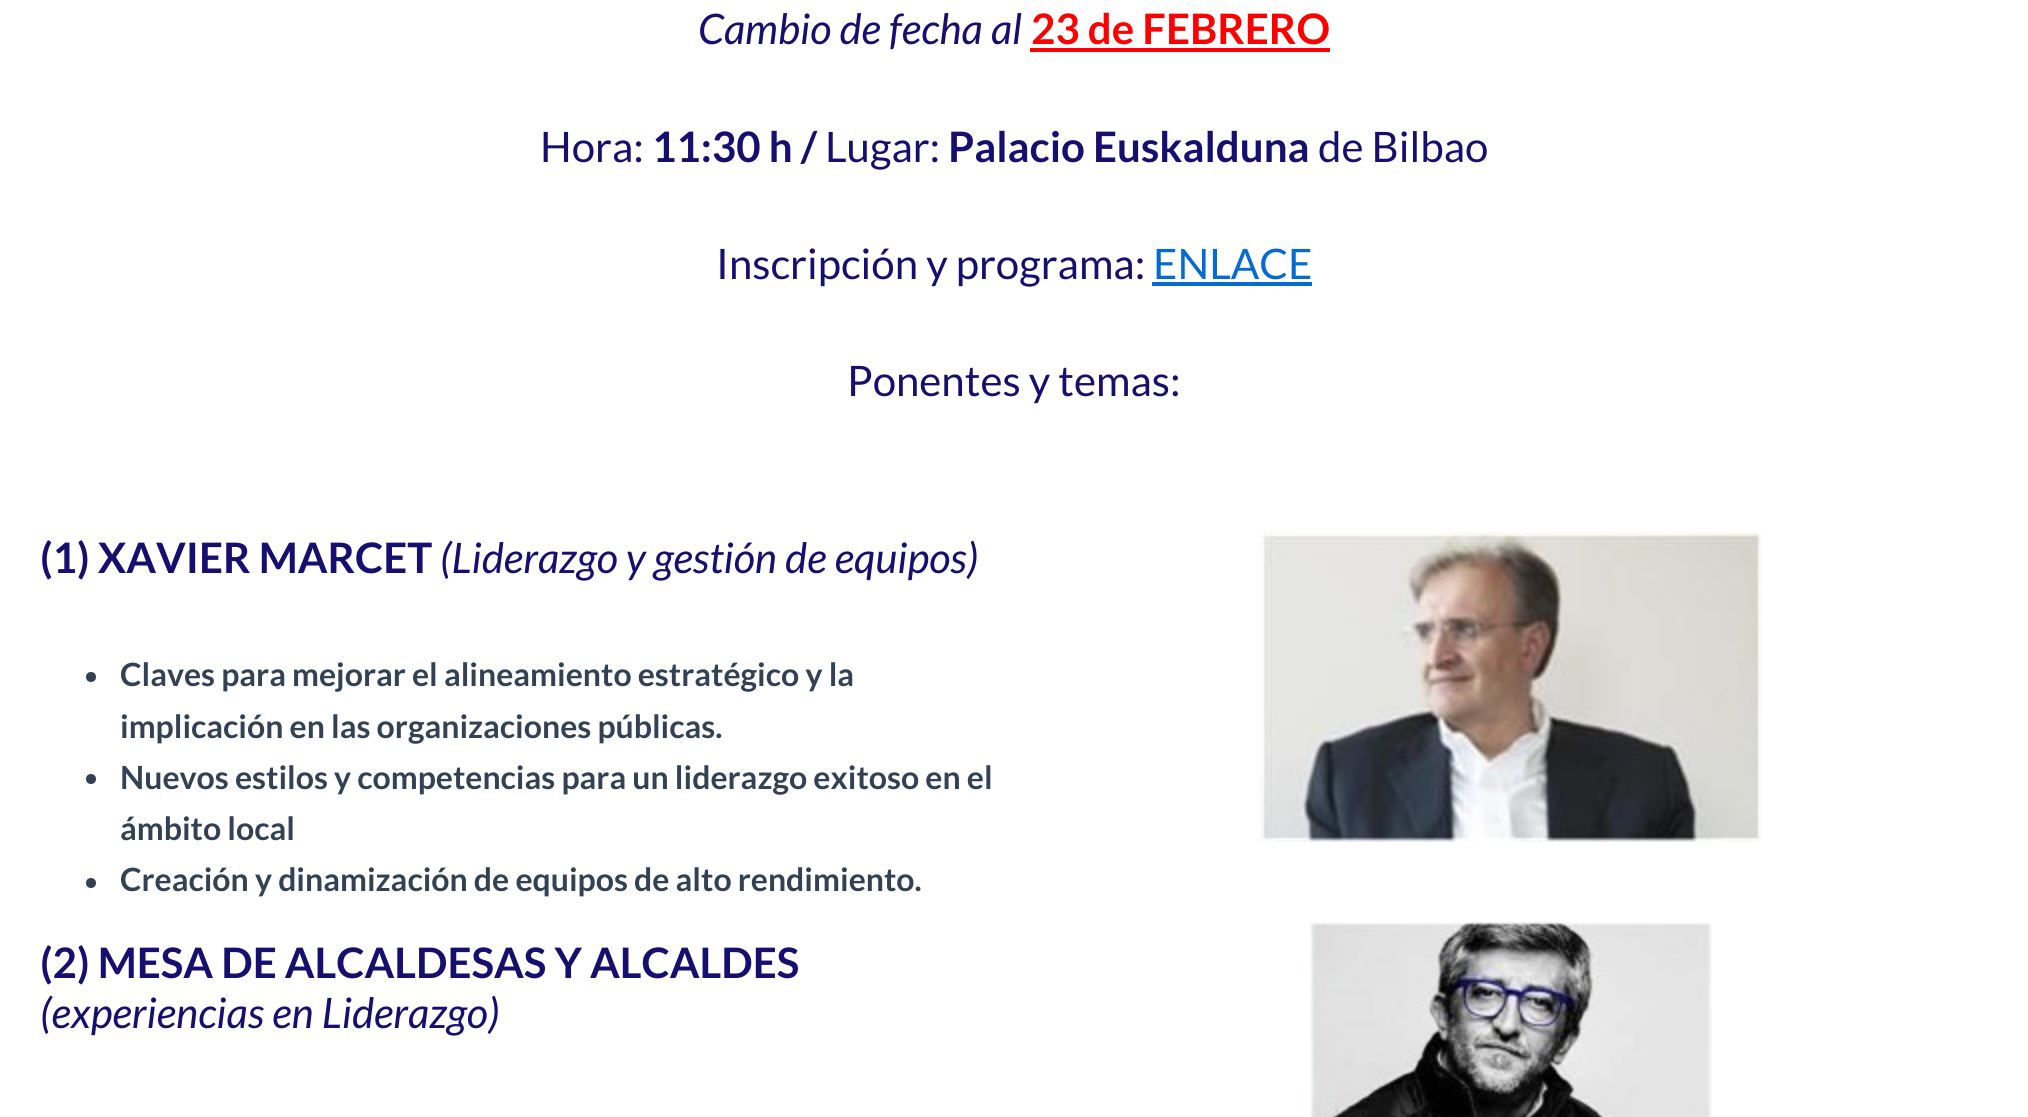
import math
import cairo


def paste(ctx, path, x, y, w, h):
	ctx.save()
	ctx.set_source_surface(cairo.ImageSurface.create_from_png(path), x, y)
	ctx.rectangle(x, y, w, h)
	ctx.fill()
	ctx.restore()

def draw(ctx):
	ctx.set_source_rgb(1, 1, 1)
	ctx.paint()
	ctx.select_font_face('Lato', cairo.FONT_SLANT_ITALIC)
	ctx.set_font_size(42)
	ctx.set_source_rgb(0.086, 0.059, 0.435)
	ctx.move_to(698, 44)
	ctx.show_text('Cambio de fecha al')
	ctx.select_font_face('Lato', cairo.FONT_SLANT_NORMAL, cairo.FONT_WEIGHT_BOLD)
	ctx.set_source_rgb(1, 0, 0)
	ctx.move_to(1031, 44)
	ctx.show_text('23 de FEBRERO')
	ctx.rectangle(1030, 48, 300, 4)
	ctx.fill()
	ctx.select_font_face('Lato')
	ctx.set_source_rgb(0.086, 0.059, 0.435)
	ctx.move_to(540, 162)
	ctx.show_text('Hora:')
	ctx.select_font_face('Lato', cairo.FONT_SLANT_NORMAL, cairo.FONT_WEIGHT_BOLD)
	ctx.move_to(652, 162)
	ctx.show_text('11:30 h /')
	ctx.select_font_face('Lato')
	ctx.move_to(825, 162)
	ctx.show_text('Lugar:')
	ctx.select_font_face('Lato', cairo.FONT_SLANT_NORMAL, cairo.FONT_WEIGHT_BOLD)
	ctx.move_to(948, 162)
	ctx.show_text('Palacio Euskalduna')
	ctx.select_font_face('Lato')
	ctx.move_to(1318, 162)
	ctx.show_text('de Bilbao')
	ctx.move_to(716, 279)
	ctx.show_text('Inscripción y programa:')
	ctx.set_source_rgb(0.016, 0.42, 0.824)
	ctx.move_to(1153, 279)
	ctx.show_text('ENLACE')
	ctx.rectangle(1152, 282, 160, 4)
	ctx.fill()
	ctx.set_source_rgb(0.086, 0.059, 0.435)
	ctx.move_to(847, 396)
	ctx.show_text('Ponentes y temas:')
	ctx.select_font_face('Lato', cairo.FONT_SLANT_NORMAL, cairo.FONT_WEIGHT_BOLD)
	ctx.move_to(40, 573)
	ctx.show_text('(1) XAVIER MARCET')
	ctx.select_font_face('Lato', cairo.FONT_SLANT_ITALIC)
	ctx.move_to(440, 573)
	ctx.show_text('(Liderazgo y gestión de equipos)')
	ctx.set_source_rgb(0.2, 0.255, 0.333)
	ctx.new_path()
	ctx.arc(91, 677, 5, 0, 2 * math.pi)
	ctx.fill()
	ctx.select_font_face('Lato', cairo.FONT_SLANT_NORMAL, cairo.FONT_WEIGHT_BOLD)
	ctx.set_font_size(32)
	ctx.move_to(120, 686)
	ctx.show_text('Claves para mejorar el alineamiento estratégico y la')
	ctx.move_to(120, 738)
	ctx.show_text('implicación en las organizaciones públicas.')
	ctx.new_path()
	ctx.arc(91, 779, 5, 0, 2 * math.pi)
	ctx.fill()
	ctx.move_to(120, 789)
	ctx.show_text('Nuevos estilos y competencias para un liderazgo exitoso en el')
	ctx.move_to(120, 840)
	ctx.show_text('ámbito local')
	ctx.new_path()
	ctx.arc(91, 883, 5, 0, 2 * math.pi)
	ctx.fill()
	ctx.move_to(120, 891)
	ctx.show_text('Creación y dinamización de equipos de alto rendimiento.')
	ctx.set_font_size(42)
	ctx.set_source_rgb(0.086, 0.059, 0.435)
	ctx.move_to(40, 978)
	ctx.show_text('(2) MESA DE ALCALDESAS Y ALCALDES')
	ctx.select_font_face('Lato', cairo.FONT_SLANT_ITALIC)
	ctx.move_to(40, 1028)
	ctx.show_text('(experiencias en Liderazgo)')
	paste(ctx, 'media/1.png', 1260, 532, 502, 310)
	paste(ctx, 'media/2.png', 1310, 922, 402, 195)


surface = cairo.ImageSurface(cairo.FORMAT_RGB24, 2028, 1117)
ctx = cairo.Context(surface)
options = cairo.FontOptions()
options.set_hint_metrics(cairo.HINT_METRICS_OFF)
options.set_hint_style(cairo.HINT_STYLE_NONE)
ctx.set_font_options(options)
ctx.set_miter_limit(4)
draw(ctx)
surface.write_to_png('image.png')
